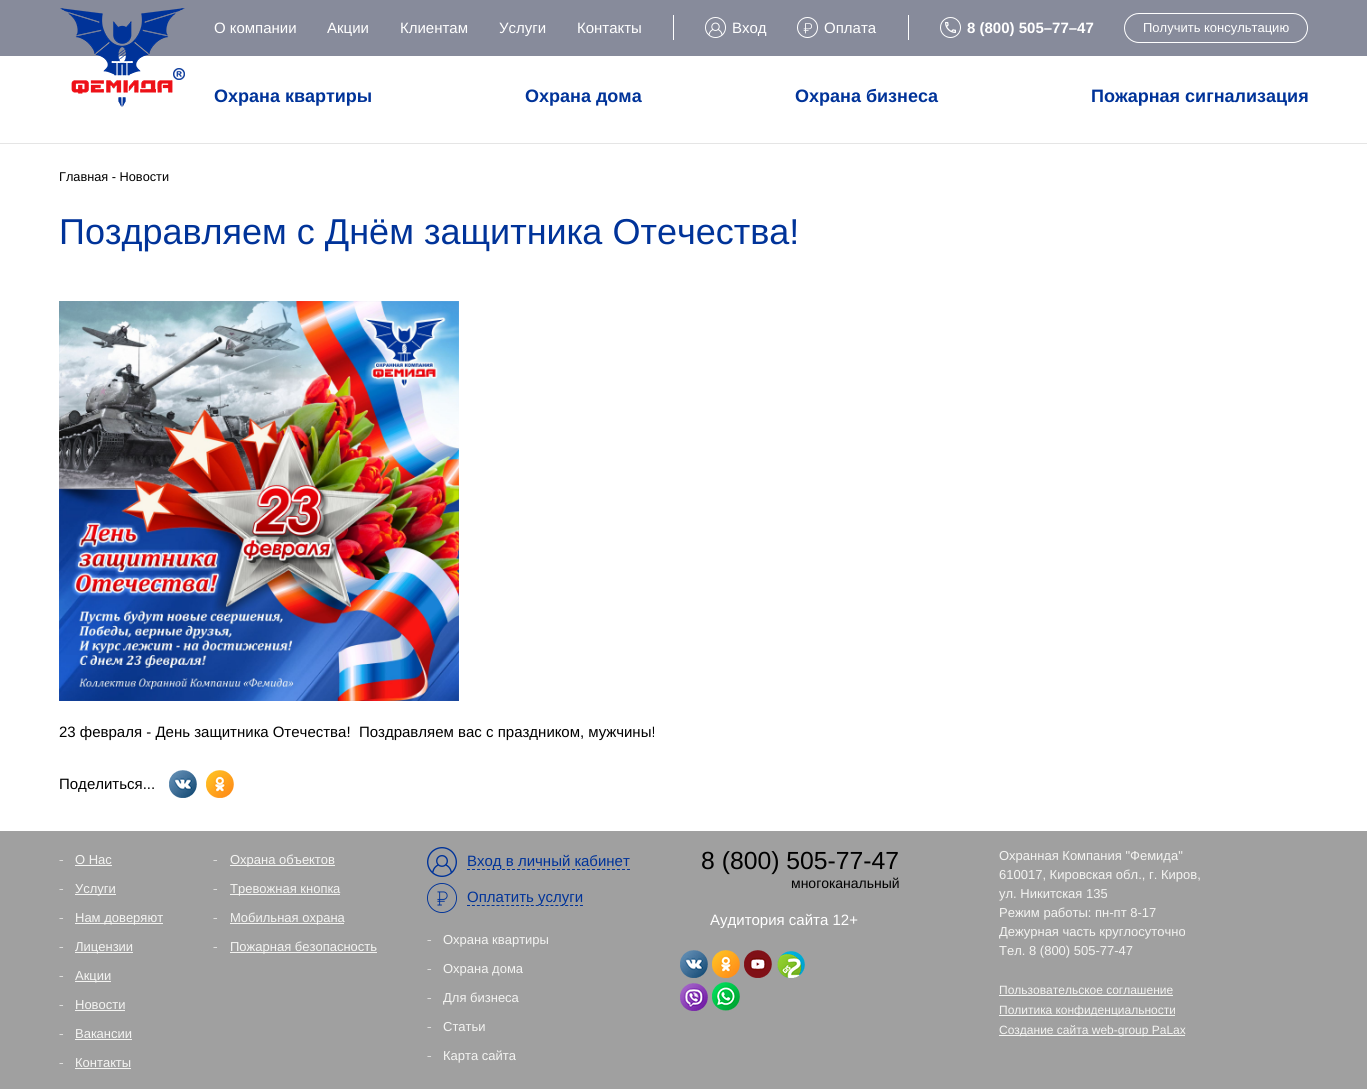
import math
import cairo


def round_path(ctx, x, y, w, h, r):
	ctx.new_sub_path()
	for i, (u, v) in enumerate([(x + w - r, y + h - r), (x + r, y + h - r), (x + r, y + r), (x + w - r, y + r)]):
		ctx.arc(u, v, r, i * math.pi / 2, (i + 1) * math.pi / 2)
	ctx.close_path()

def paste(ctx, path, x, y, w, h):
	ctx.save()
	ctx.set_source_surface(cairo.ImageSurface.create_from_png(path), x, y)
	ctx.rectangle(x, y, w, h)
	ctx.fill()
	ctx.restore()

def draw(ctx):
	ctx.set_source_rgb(1, 1, 1)
	ctx.paint()
	ctx.set_source_rgb(0.529, 0.545, 0.608)
	ctx.rectangle(0, 0, 1367, 56)
	ctx.fill()
	ctx.select_font_face('Liberation Sans')
	ctx.set_font_size(15)
	ctx.set_source_rgb(1, 1, 1)
	for x, y, s in [
		(214, 33, 'О компании'),
		(327, 33, 'Акции'),
		(400, 33, 'Клиентам'),
		(499, 33, 'Услуги'),
		(577, 33, 'Контакты'),
	]:
		ctx.move_to(x, y)
		ctx.show_text(s)
	ctx.rectangle(673, 15, 1, 25)
	ctx.fill()
	paste(ctx, 'media/1.png', 705, 17, 21, 21)
	ctx.move_to(732, 33)
	ctx.show_text('Вход')
	paste(ctx, 'media/2.png', 797, 17, 21, 21)
	ctx.move_to(824, 33)
	ctx.show_text('Оплата')
	ctx.rectangle(908, 15, 1, 25)
	ctx.fill()
	paste(ctx, 'media/3.png', 940, 17, 21, 21)
	ctx.select_font_face('Liberation Sans', cairo.FONT_SLANT_NORMAL, cairo.FONT_WEIGHT_BOLD)
	ctx.move_to(967, 33)
	ctx.show_text('8 (800) 505–77–47')
	round_path(ctx, 1124.5, 13.5, 183, 29, 14.5)
	ctx.set_line_width(1)
	ctx.stroke()
	ctx.select_font_face('Liberation Sans')
	ctx.set_font_size(13)
	ctx.move_to(1143, 32)
	ctx.show_text('Получить консультацию')
	paste(ctx, 'media/4.png', 60, 8, 125, 99)
	ctx.select_font_face('Liberation Sans', cairo.FONT_SLANT_NORMAL, cairo.FONT_WEIGHT_BOLD)
	ctx.set_font_size(18)
	ctx.set_source_rgb(0, 0.2, 0.6)
	for x, y, s in [
		(214, 102, 'Охрана квартиры'),
		(525, 102, 'Охрана дома'),
		(795, 102, 'Охрана бизнеса'),
		(1091, 102, 'Пожарная сигнализация'),
	]:
		ctx.move_to(x, y)
		ctx.show_text(s)
	ctx.set_source_rgb(0.898, 0.898, 0.898)
	ctx.rectangle(0, 143, 1367, 1)
	ctx.fill()
	ctx.select_font_face('Liberation Sans')
	ctx.set_font_size(12.75)
	ctx.set_source_rgb(0, 0, 0)
	ctx.move_to(59, 181)
	ctx.show_text('Главная - Новости')
	ctx.set_font_size(36)
	ctx.set_source_rgb(0, 0.2, 0.6)
	ctx.move_to(59, 244)
	ctx.show_text('Поздравляем с Днём защитника Отечества!')
	paste(ctx, 'media/5.png', 59, 301, 400, 400)
	ctx.set_font_size(15)
	ctx.set_source_rgb(0, 0, 0)
	ctx.move_to(59, 737)
	ctx.show_text('23 февраля - День защитника Отечества!  Поздравляем вас с праздником, мужчины!')
	ctx.move_to(59, 789)
	ctx.show_text('Поделиться...')
	paste(ctx, 'media/6.png', 169, 770, 28, 28)
	paste(ctx, 'media/7.png', 206, 770, 28, 28)
	ctx.set_source_rgb(0.627, 0.627, 0.627)
	ctx.rectangle(0, 831, 1367, 258)
	ctx.fill()
	ctx.select_font_face('Proxima Nova Light')
	ctx.set_source_rgb(0.957, 0.957, 0.949)
	ctx.move_to(59, 864)
	ctx.show_text('-')
	ctx.select_font_face('Liberation Sans')
	ctx.set_font_size(13)
	ctx.move_to(75, 864)
	ctx.show_text('О Нас')
	ctx.rectangle(75, 865, 37, 1)
	ctx.fill()
	ctx.select_font_face('Proxima Nova Light')
	ctx.set_font_size(15)
	ctx.move_to(59, 893)
	ctx.show_text('-')
	ctx.rectangle(75, 894, 41, 1)
	ctx.fill()
	ctx.select_font_face('Liberation Sans')
	ctx.set_font_size(13)
	ctx.move_to(75, 893)
	ctx.show_text('Услуги')
	ctx.select_font_face('Proxima Nova Light')
	ctx.set_font_size(15)
	ctx.move_to(59, 922)
	ctx.show_text('-')
	ctx.rectangle(75, 923, 88, 1)
	ctx.fill()
	ctx.select_font_face('Liberation Sans')
	ctx.set_font_size(13)
	ctx.move_to(75, 922)
	ctx.show_text('Нам доверяют')
	ctx.select_font_face('Proxima Nova Light')
	ctx.set_font_size(15)
	ctx.move_to(59, 951)
	ctx.show_text('-')
	ctx.rectangle(75, 952, 58, 1)
	ctx.fill()
	ctx.select_font_face('Liberation Sans')
	ctx.set_font_size(13)
	ctx.move_to(75, 951)
	ctx.show_text('Лицензии')
	ctx.select_font_face('Proxima Nova Light')
	ctx.set_font_size(15)
	ctx.move_to(59, 980)
	ctx.show_text('-')
	ctx.rectangle(75, 981, 36, 1)
	ctx.fill()
	ctx.select_font_face('Liberation Sans')
	ctx.set_font_size(13)
	ctx.move_to(75, 980)
	ctx.show_text('Акции')
	ctx.select_font_face('Proxima Nova Light')
	ctx.set_font_size(15)
	ctx.move_to(59, 1009)
	ctx.show_text('-')
	ctx.select_font_face('Liberation Sans')
	ctx.set_font_size(13)
	ctx.move_to(75, 1009)
	ctx.show_text('Новости')
	ctx.rectangle(75, 1010, 50, 1)
	ctx.fill()
	ctx.select_font_face('Proxima Nova Light')
	ctx.set_font_size(15)
	ctx.move_to(59, 1038)
	ctx.show_text('-')
	ctx.select_font_face('Liberation Sans')
	ctx.set_font_size(13)
	ctx.move_to(75, 1038)
	ctx.show_text('Вакансии')
	ctx.rectangle(75, 1039, 57, 1)
	ctx.fill()
	ctx.select_font_face('Proxima Nova Light')
	ctx.set_font_size(15)
	ctx.move_to(59, 1067)
	ctx.show_text('-')
	ctx.select_font_face('Liberation Sans')
	ctx.set_font_size(13)
	ctx.move_to(75, 1067)
	ctx.show_text('Контакты')
	ctx.rectangle(75, 1068, 56, 1)
	ctx.fill()
	ctx.select_font_face('Proxima Nova Light')
	ctx.set_font_size(15)
	ctx.move_to(213, 864)
	ctx.show_text('-')
	ctx.rectangle(230, 865, 105, 1)
	ctx.fill()
	ctx.select_font_face('Liberation Sans')
	ctx.set_font_size(13)
	ctx.move_to(230, 864)
	ctx.show_text('Охрана объектов')
	ctx.select_font_face('Proxima Nova Light')
	ctx.set_font_size(15)
	ctx.move_to(213, 893)
	ctx.show_text('-')
	ctx.rectangle(230, 894, 110, 1)
	ctx.fill()
	ctx.select_font_face('Liberation Sans')
	ctx.set_font_size(13)
	ctx.move_to(230, 893)
	ctx.show_text('Тревожная кнопка')
	ctx.select_font_face('Proxima Nova Light')
	ctx.set_font_size(15)
	ctx.move_to(213, 922)
	ctx.show_text('-')
	ctx.rectangle(230, 923, 114, 1)
	ctx.fill()
	ctx.select_font_face('Liberation Sans')
	ctx.set_font_size(13)
	ctx.move_to(230, 922)
	ctx.show_text('Мобильная охрана')
	ctx.select_font_face('Proxima Nova Light')
	ctx.set_font_size(15)
	ctx.move_to(213, 951)
	ctx.show_text('-')
	ctx.rectangle(230, 952, 147, 1)
	ctx.fill()
	ctx.select_font_face('Liberation Sans')
	ctx.set_font_size(13)
	ctx.move_to(230, 951)
	ctx.show_text('Пожарная безопасность')
	paste(ctx, 'media/8.png', 427, 847, 30, 30)
	ctx.set_font_size(15)
	ctx.set_source_rgb(0, 0.2, 0.6)
	ctx.move_to(467, 866)
	ctx.show_text('Вход в личный кабинет')
	ctx.new_path()
	ctx.move_to(467, 869.5)
	ctx.line_to(630, 869.5)
	ctx.set_dash([3, 2])
	ctx.stroke()
	paste(ctx, 'media/9.png', 427, 883, 30, 30)
	ctx.new_path()
	ctx.move_to(467, 905.5)
	ctx.line_to(583, 905.5)
	ctx.set_dash([3, 1.91])
	ctx.stroke()
	ctx.move_to(467, 902)
	ctx.show_text('Оплатить услуги')
	ctx.select_font_face('Proxima Nova Light')
	ctx.set_source_rgb(0.957, 0.957, 0.949)
	ctx.move_to(427, 944)
	ctx.show_text('-')
	ctx.select_font_face('Liberation Sans')
	ctx.set_font_size(13)
	ctx.move_to(443, 944)
	ctx.show_text('Охрана квартиры')
	ctx.select_font_face('Proxima Nova Light')
	ctx.set_font_size(15)
	ctx.move_to(427, 973)
	ctx.show_text('-')
	ctx.select_font_face('Liberation Sans')
	ctx.set_font_size(13)
	ctx.move_to(443, 973)
	ctx.show_text('Охрана дома')
	ctx.select_font_face('Proxima Nova Light')
	ctx.set_font_size(15)
	ctx.move_to(427, 1002)
	ctx.show_text('-')
	ctx.select_font_face('Liberation Sans')
	ctx.set_font_size(13)
	ctx.move_to(443, 1002)
	ctx.show_text('Для бизнеса')
	ctx.select_font_face('Proxima Nova Light')
	ctx.set_font_size(15)
	ctx.move_to(427, 1031)
	ctx.show_text('-')
	ctx.select_font_face('Liberation Sans')
	ctx.set_font_size(13)
	ctx.move_to(443, 1031)
	ctx.show_text('Статьи')
	ctx.select_font_face('Proxima Nova Light')
	ctx.set_font_size(15)
	ctx.move_to(427, 1060)
	ctx.show_text('-')
	ctx.select_font_face('Liberation Sans')
	ctx.set_font_size(13)
	ctx.move_to(443, 1060)
	ctx.show_text('Карта сайта')
	ctx.set_font_size(24.75)
	ctx.set_source_rgb(0, 0, 0)
	ctx.move_to(701, 869)
	ctx.show_text('8 (800) 505-77-47')
	ctx.set_font_size(14)
	ctx.move_to(791, 888)
	ctx.show_text('многоканальный')
	ctx.set_font_size(15)
	ctx.set_source_rgb(1, 1, 1)
	ctx.move_to(710, 925)
	ctx.show_text('Аудитория сайта 12+')
	paste(ctx, 'media/10.png', 680, 950, 28, 28)
	paste(ctx, 'media/11.png', 712, 950, 28, 28)
	paste(ctx, 'media/12.png', 744, 950, 28, 28)
	paste(ctx, 'media/13.png', 777, 951, 28, 27)
	paste(ctx, 'media/14.png', 680, 983, 28, 28)
	paste(ctx, 'media/15.png', 712, 982, 28, 29)
	ctx.set_font_size(13)
	ctx.set_source_rgb(0.957, 0.957, 0.949)
	for x, y, s in [
		(999, 860, 'Охранная Компания "Фемида"'),
		(999, 879, '610017, Кировская обл., г. Киров,'),
		(999, 898, 'ул. Никитская 135'),
		(999, 917, 'Режим работы: пн-пт 8-17'),
		(999, 936, 'Дежурная часть круглосуточно'),
		(999, 955, 'Тел. 8 (800) 505-77-47'),
	]:
		ctx.move_to(x, y)
		ctx.show_text(s)
	ctx.set_font_size(12)
	ctx.move_to(999, 994)
	ctx.show_text('Пользовательское соглашение')
	ctx.rectangle(999, 995, 174, 1)
	ctx.fill()
	ctx.rectangle(999, 1015, 176, 1)
	ctx.fill()
	ctx.move_to(999, 1014)
	ctx.show_text('Политика конфиденциальности')
	ctx.rectangle(999, 1035, 186, 1)
	ctx.fill()
	ctx.move_to(999, 1034)
	ctx.show_text('Создание сайта web-group PaLax')


surface = cairo.ImageSurface(cairo.FORMAT_RGB24, 1367, 1089)
ctx = cairo.Context(surface)
options = cairo.FontOptions()
options.set_hint_metrics(cairo.HINT_METRICS_OFF)
options.set_hint_style(cairo.HINT_STYLE_NONE)
ctx.set_font_options(options)
ctx.set_miter_limit(4)
draw(ctx)
surface.write_to_png('image.png')
